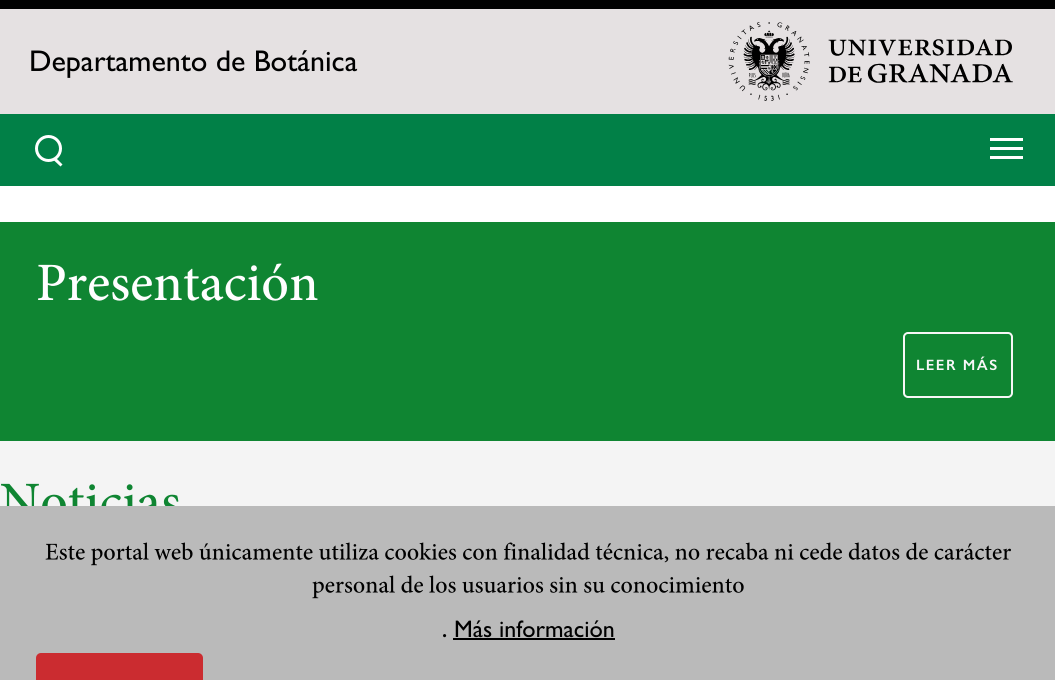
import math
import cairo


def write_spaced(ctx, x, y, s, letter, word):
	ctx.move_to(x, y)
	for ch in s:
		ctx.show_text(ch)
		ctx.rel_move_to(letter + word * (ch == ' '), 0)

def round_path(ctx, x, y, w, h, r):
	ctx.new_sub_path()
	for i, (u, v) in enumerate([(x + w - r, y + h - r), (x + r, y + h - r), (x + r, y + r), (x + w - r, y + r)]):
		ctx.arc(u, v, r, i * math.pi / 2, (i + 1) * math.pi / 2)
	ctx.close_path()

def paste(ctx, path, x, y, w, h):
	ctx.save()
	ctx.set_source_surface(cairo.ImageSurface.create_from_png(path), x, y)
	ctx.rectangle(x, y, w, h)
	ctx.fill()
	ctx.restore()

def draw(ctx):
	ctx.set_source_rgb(1, 1, 1)
	ctx.paint()
	ctx.set_source_rgb(0.004, 0.004, 0.004)
	ctx.rectangle(0, 0, 1055, 9)
	ctx.fill()
	ctx.set_source_rgb(0.004, 0.502, 0.278)
	ctx.rectangle(0, 114, 1055, 72)
	ctx.fill()
	ctx.set_source_rgb(0.898, 0.882, 0.886)
	ctx.rectangle(0, 9, 1055, 105)
	ctx.fill()
	ctx.select_font_face('Gill Sans')
	ctx.set_font_size(30)
	ctx.set_source_rgb(0, 0, 0)
	ctx.move_to(29, 71)
	ctx.show_text('Departamento de Botánica')
	paste(ctx, 'media/1.png', 728, 22, 285, 79)
	ctx.arc(48.5, 148.5, 12, 0, 2 * math.pi)
	ctx.set_source_rgb(1, 1, 1)
	ctx.set_line_width(3)
	ctx.stroke()
	ctx.new_path()
	ctx.move_to(55.5, 157.5)
	ctx.line_to(62.5, 164.5)
	ctx.line_to(60.5, 166.5)
	ctx.line_to(53, 159.5)
	ctx.close_path()
	ctx.fill()
	ctx.rectangle(990, 147, 33, 3)
	ctx.rectangle(990, 138, 33, 3)
	ctx.rectangle(990, 156, 33, 3)
	ctx.fill()
	ctx.set_source_rgb(0.059, 0.522, 0.196)
	ctx.rectangle(0, 222, 1055, 219)
	ctx.fill()
	paste(ctx, 'media/2.png', 38, 263, 280, 38)
	round_path(ctx, 904, 333, 108, 64, 4)
	ctx.set_source_rgb(0.965, 0.965, 0.965)
	ctx.set_line_width(2)
	ctx.stroke()
	ctx.select_font_face('Gill Sans SemiBold')
	ctx.set_font_size(15)
	write_spaced(ctx, 916, 370, 'LEER MÁS', 1.5, 0)
	ctx.set_source_rgb(0.957, 0.957, 0.957)
	ctx.rectangle(0, 441, 1055, 65)
	ctx.fill()
	paste(ctx, 'media/3.png', 1, 483, 178, 23)
	ctx.set_source_rgb(0.729, 0.729, 0.729)
	ctx.rectangle(0, 506, 1055, 174)
	ctx.fill()
	paste(ctx, 'media/4.png', 45, 542, 966, 24)
	paste(ctx, 'media/5.png', 312, 575, 432, 24)
	ctx.set_font_size(21)
	ctx.set_source_rgb(0, 0, 0)
	ctx.move_to(442, 637)
	ctx.show_text('.')
	ctx.select_font_face('Gill Sans')
	ctx.set_font_size(24)
	ctx.move_to(454, 637)
	ctx.show_text('Más información')
	ctx.rectangle(453, 638, 162, 2)
	ctx.fill()
	ctx.set_source_rgb(0.796, 0.173, 0.188)
	round_path(ctx, 36, 653, 167, 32, 5)
	ctx.fill()


surface = cairo.ImageSurface(cairo.FORMAT_RGB24, 1055, 680)
ctx = cairo.Context(surface)
options = cairo.FontOptions()
options.set_hint_metrics(cairo.HINT_METRICS_OFF)
options.set_hint_style(cairo.HINT_STYLE_NONE)
ctx.set_font_options(options)
ctx.set_miter_limit(4)
draw(ctx)
surface.write_to_png('image.png')
